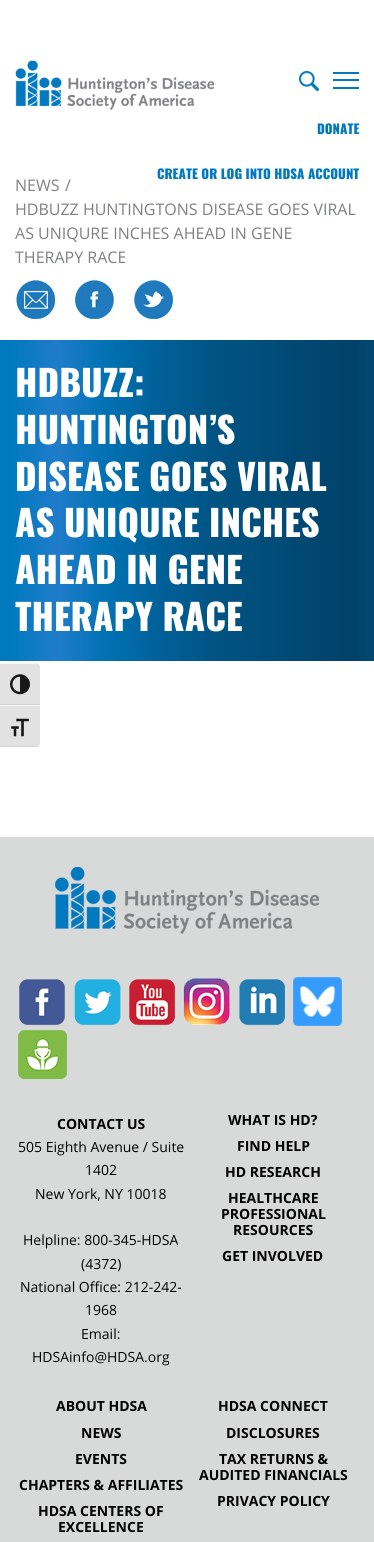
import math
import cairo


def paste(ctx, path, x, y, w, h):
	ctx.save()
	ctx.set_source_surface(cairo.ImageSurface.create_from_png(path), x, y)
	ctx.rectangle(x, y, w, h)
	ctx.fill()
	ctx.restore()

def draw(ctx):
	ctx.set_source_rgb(1, 1, 1)
	ctx.paint()
	paste(ctx, 'media/1.png', 299, 71, 20, 20)
	ctx.set_source_rgb(0, 0.475, 0.749)
	ctx.rectangle(333, 72, 26, 2)
	ctx.rectangle(333, 79, 26, 2)
	ctx.rectangle(333, 87, 26, 2)
	ctx.fill()
	paste(ctx, 'media/2.png', 15, 60, 200, 50)
	ctx.select_font_face('Oswald Black')
	ctx.set_font_size(13)
	ctx.move_to(317, 134)
	ctx.show_text('DONATE')
	ctx.move_to(157, 179)
	ctx.show_text('CREATE OR LOG INTO HDSA ACCOUNT')
	ctx.select_font_face('Open Sans')
	ctx.set_font_size(16)
	ctx.set_source_rgb(0.494, 0.502, 0.514)
	for x, y, s in [
		(15, 191, 'NEWS'),
		(65, 191, '/'),
		(15, 215, 'HDBUZZ HUNTINGTONS DISEASE GOES VIRAL'),
		(15, 239, 'AS UNIQURE INCHES AHEAD IN GENE'),
		(15, 263, 'THERAPY RACE'),
	]:
		ctx.move_to(x, y)
		ctx.show_text(s)
	paste(ctx, 'media/3.png', 16, 280, 39, 39)
	paste(ctx, 'media/4.png', 75, 280, 39, 40)
	paste(ctx, 'media/5.png', 134, 279, 40, 41)
	gradient = cairo.LinearGradient(0, 501, 374, 501)
	gradient.add_color_stop_rgba(0.03, 0, 0.475, 0.749, 1)
	gradient.add_color_stop_rgba(0.15, 0.125, 0.486, 0.792, 1)
	gradient.add_color_stop_rgba(0.29, 0, 0.443, 0.698, 1)
	gradient.add_color_stop_rgba(0.43, 0.004, 0.376, 0.596, 1)
	gradient.add_color_stop_rgba(0.57, 0.004, 0.329, 0.518, 1)
	gradient.add_color_stop_rgba(0.95, 0.004, 0.255, 0.408, 1)
	gradient.add_color_stop_rgba(0.98, 0.004, 0.278, 0.439, 1)
	ctx.set_source(gradient)
	ctx.rectangle(0, 340, 374, 321)
	ctx.fill()
	ctx.select_font_face('Oswald Black')
	ctx.set_font_size(36)
	ctx.set_source_rgb(1, 1, 1)
	for x, y, s in [
		(15, 397, 'HDBUZZ:'),
		(15, 444, 'HUNTINGTON’S'),
		(15, 491, 'DISEASE GOES VIRAL'),
		(15, 537, 'AS UNIQURE INCHES'),
		(15, 584, 'AHEAD IN GENE'),
		(15, 631, 'THERAPY RACE'),
	]:
		ctx.move_to(x, y)
		ctx.show_text(s)
	ctx.set_source_rgb(0.847, 0.851, 0.851)
	ctx.rectangle(0, 837, 374, 705)
	ctx.fill()
	paste(ctx, 'media/6.png', 55, 867, 264, 67)
	paste(ctx, 'media/7.png', 19, 979, 46, 47)
	paste(ctx, 'media/8.png', 74, 979, 47, 47)
	paste(ctx, 'media/9.png', 129, 979, 47, 47)
	paste(ctx, 'media/10.png', 183, 978, 47, 47)
	paste(ctx, 'media/11.png', 239, 979, 46, 47)
	paste(ctx, 'media/12.png', 293, 977, 49, 49)
	paste(ctx, 'media/13.png', 18, 1030, 49, 49)
	ctx.select_font_face('Open Sans', cairo.FONT_SLANT_NORMAL, cairo.FONT_WEIGHT_BOLD)
	ctx.set_font_size(14)
	ctx.set_source_rgb(0, 0, 0)
	ctx.move_to(57, 1129)
	ctx.show_text('CONTACT US')
	ctx.select_font_face('Open Sans')
	for x, y, s in [
		(18, 1152, '505 Eighth Avenue / Suite'),
		(85, 1175, '1402'),
		(35, 1199, 'New York, NY 10018'),
		(23, 1245, 'Helpline: 800-345-HDSA'),
		(81, 1269, '(4372)'),
		(20, 1292, 'National Office: 212-242-'),
		(85, 1315, '1968'),
		(81, 1339, 'Email:'),
		(32, 1362, 'HDSAinfo@HDSA.org'),
	]:
		ctx.move_to(x, y)
		ctx.show_text(s)
	ctx.select_font_face('Open Sans', cairo.FONT_SLANT_NORMAL, cairo.FONT_WEIGHT_BOLD)
	for x, y, s in [
		(228, 1125, 'WHAT IS HD?'),
		(237, 1151, 'FIND HELP'),
		(225, 1177, 'HD RESEARCH'),
		(228, 1203, 'HEALTHCARE'),
		(221, 1219, 'PROFESSIONAL'),
		(233, 1235, 'RESOURCES'),
		(222, 1261, 'GET INVOLVED'),
		(56, 1411, 'ABOUT HDSA'),
		(81, 1438, 'NEWS'),
		(75, 1464, 'EVENTS'),
		(19, 1490, 'CHAPTERS & AFFILIATES'),
		(38, 1516, 'HDSA CENTERS OF'),
		(58, 1532, 'EXCELLENCE'),
		(218, 1411, 'HDSA CONNECT'),
		(226, 1438, 'DISCLOSURES'),
		(219, 1464, 'TAX RETURNS &'),
		(199, 1480, 'AUDITED FINANCIALS'),
		(217, 1506, 'PRIVACY POLICY'),
	]:
		ctx.move_to(x, y)
		ctx.show_text(s)
	ctx.set_source_rgb(0.886, 0.886, 0.886)
	ctx.new_path()
	ctx.move_to(0, 663)
	ctx.line_to(36, 663)
	ctx.curve_to(38, 663, 40, 665, 40, 667)
	ctx.line_to(40, 705)
	ctx.line_to(0, 705)
	ctx.close_path()
	ctx.fill()
	ctx.set_source_rgb(0.961, 0.961, 0.961)
	ctx.new_path()
	ctx.move_to(0, 663)
	ctx.line_to(0, 664)
	ctx.line_to(36, 664)
	ctx.curve_to(38, 664, 40, 665, 40, 667)
	ctx.curve_to(40, 665, 38, 663, 36, 663)
	ctx.close_path()
	ctx.fill()
	ctx.set_source_rgb(0.824, 0.824, 0.824)
	ctx.rectangle(0, 704, 40, 1)
	ctx.fill()
	paste(ctx, 'media/14.png', 10, 674, 20, 21)
	ctx.set_source_rgb(0.886, 0.886, 0.886)
	ctx.new_path()
	ctx.move_to(0, 705)
	ctx.line_to(40, 705)
	ctx.line_to(40, 743)
	ctx.curve_to(40, 745, 38, 747, 36, 747)
	ctx.line_to(0, 747)
	ctx.close_path()
	ctx.fill()
	ctx.set_source_rgb(0.961, 0.961, 0.961)
	ctx.rectangle(0, 705, 40, 1)
	ctx.fill()
	ctx.set_source_rgb(0.824, 0.824, 0.824)
	ctx.new_path()
	ctx.move_to(0, 746)
	ctx.line_to(0, 747)
	ctx.line_to(36, 747)
	ctx.curve_to(38, 747, 40, 745, 40, 743)
	ctx.curve_to(40, 745, 38, 746, 36, 746)
	ctx.close_path()
	ctx.fill()
	paste(ctx, 'media/15.png', 11, 718, 18, 19)


surface = cairo.ImageSurface(cairo.FORMAT_RGB24, 374, 1542)
ctx = cairo.Context(surface)
options = cairo.FontOptions()
options.set_hint_metrics(cairo.HINT_METRICS_OFF)
options.set_hint_style(cairo.HINT_STYLE_NONE)
ctx.set_font_options(options)
ctx.set_miter_limit(4)
draw(ctx)
surface.write_to_png('image.png')
